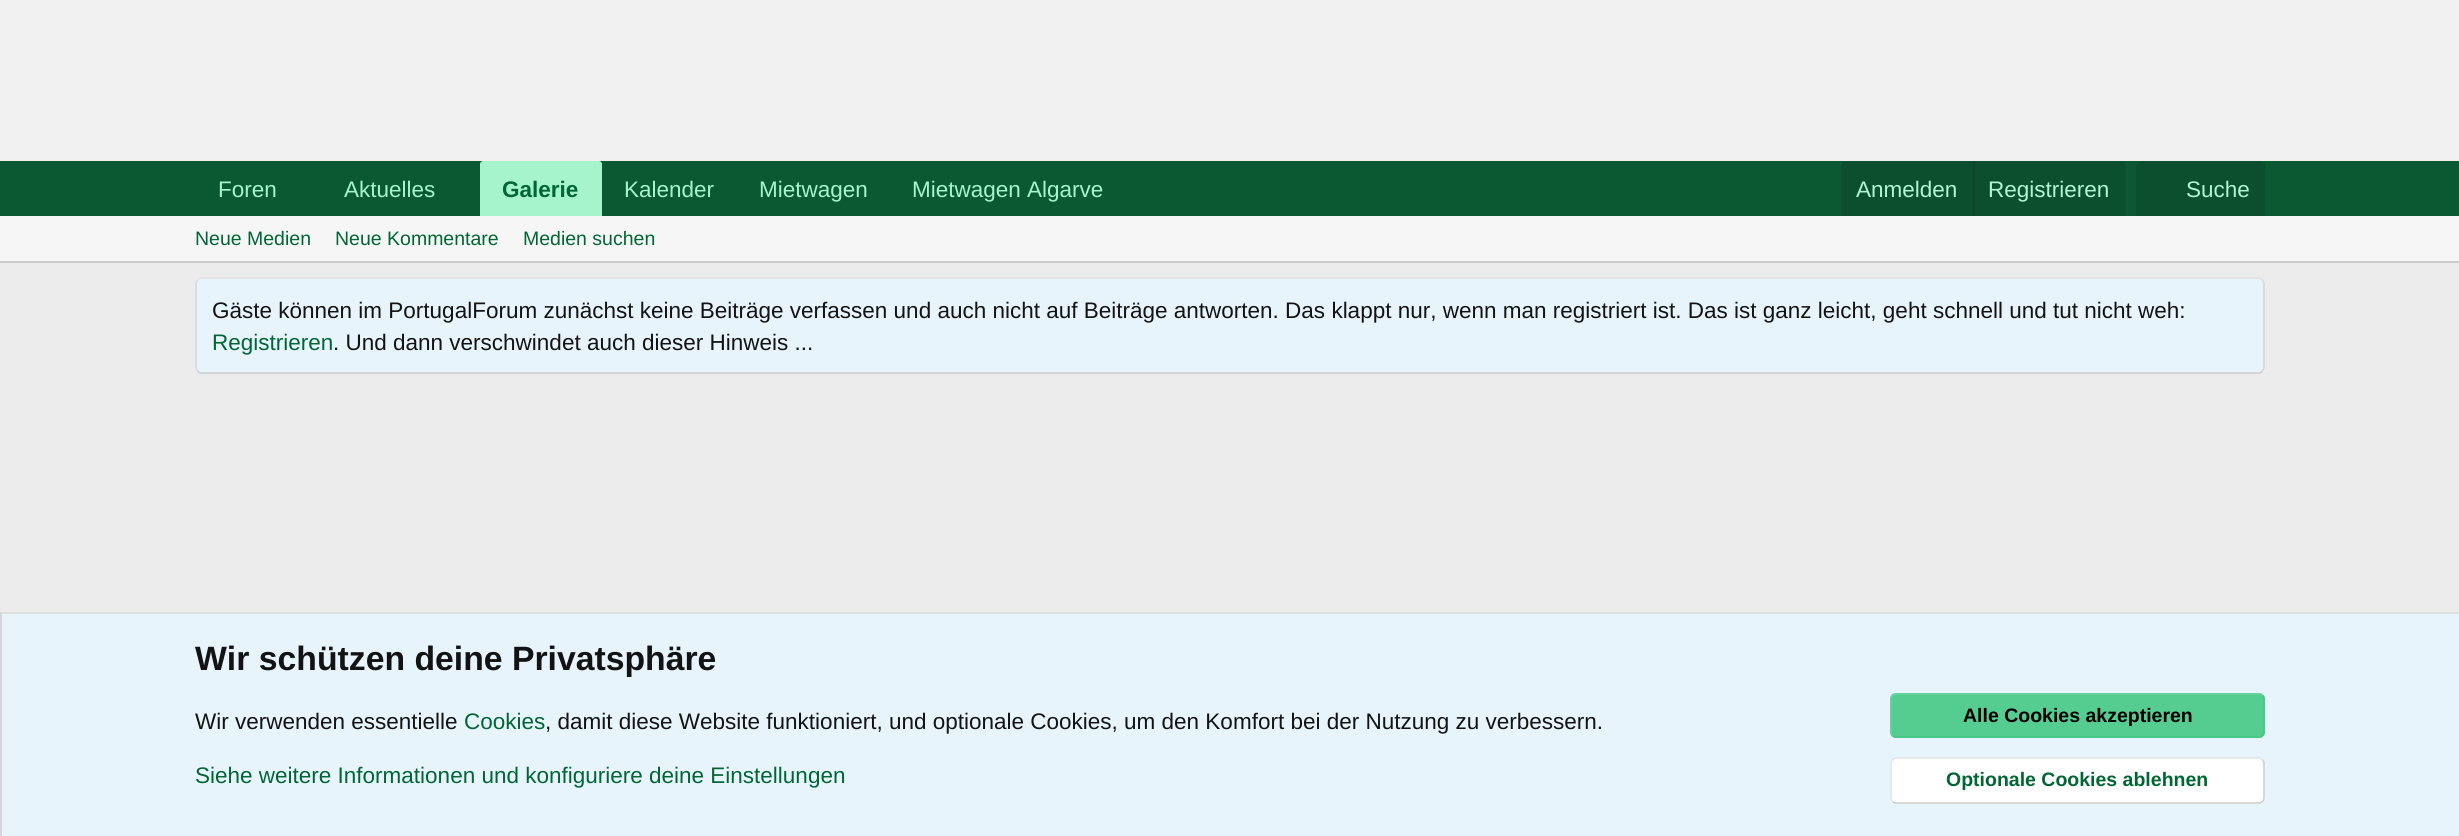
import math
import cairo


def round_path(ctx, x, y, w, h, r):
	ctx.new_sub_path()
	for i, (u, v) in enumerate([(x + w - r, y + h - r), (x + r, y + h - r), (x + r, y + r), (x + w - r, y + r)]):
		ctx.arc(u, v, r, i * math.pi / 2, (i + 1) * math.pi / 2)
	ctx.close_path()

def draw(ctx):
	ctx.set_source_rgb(0.922, 0.922, 0.922)
	ctx.paint()
	ctx.set_source_rgb(0.941, 0.941, 0.941)
	ctx.rectangle(0, 0, 2459, 161)
	ctx.fill()
	ctx.set_source_rgb(0.043, 0.349, 0.196)
	ctx.rectangle(0, 161, 2459, 55)
	ctx.fill()
	ctx.select_font_face('Liberation Sans')
	ctx.set_font_size(22.5)
	ctx.set_source_rgb(0.647, 0.957, 0.8)
	ctx.move_to(218, 197)
	ctx.show_text('Foren')
	ctx.move_to(344, 197)
	ctx.show_text('Aktuelles')
	ctx.new_path()
	ctx.move_to(483, 161)
	ctx.line_to(599, 161)
	ctx.curve_to(600.5, 161, 602, 162.5, 602, 164)
	ctx.line_to(602, 216)
	ctx.line_to(480, 216)
	ctx.line_to(480, 164)
	ctx.curve_to(480, 162.5, 481.5, 161, 483, 161)
	ctx.close_path()
	ctx.fill()
	ctx.select_font_face('Liberation Sans', cairo.FONT_SLANT_NORMAL, cairo.FONT_WEIGHT_BOLD)
	ctx.set_source_rgb(0, 0.4, 0.2)
	ctx.move_to(502, 197)
	ctx.show_text('Galerie')
	ctx.select_font_face('Liberation Sans')
	ctx.set_source_rgb(0.647, 0.957, 0.8)
	for x, y, s in [
		(624, 197, 'Kalender'),
		(759, 197, 'Mietwagen'),
		(912, 197, 'Mietwagen Algarve'),
	]:
		ctx.move_to(x, y)
		ctx.show_text(s)
	ctx.set_source_rgb(0.047, 0.31, 0.18)
	ctx.new_path()
	ctx.move_to(1847, 161)
	ctx.line_to(2120, 161)
	ctx.curve_to(2123.5, 161, 2126, 163.5, 2126, 167)
	ctx.line_to(2126, 216)
	ctx.line_to(1841, 216)
	ctx.line_to(1841, 167)
	ctx.curve_to(1841, 163.5, 1843.5, 161, 1847, 161)
	ctx.close_path()
	ctx.fill()
	ctx.set_source_rgb(0.698, 0.957, 0.827)
	ctx.move_to(1856, 197)
	ctx.show_text('Anmelden')
	ctx.set_source_rgb(0.051, 0.275, 0.165)
	ctx.rectangle(1973, 161, 2, 55)
	ctx.fill()
	ctx.set_source_rgb(0.698, 0.957, 0.827)
	ctx.move_to(1988, 197)
	ctx.show_text('Registrieren')
	ctx.set_source_rgb(0.047, 0.31, 0.18)
	ctx.new_path()
	ctx.move_to(2142, 161)
	ctx.line_to(2259, 161)
	ctx.curve_to(2262.5, 161, 2265, 163.5, 2265, 167)
	ctx.line_to(2265, 216)
	ctx.line_to(2136, 216)
	ctx.line_to(2136, 167)
	ctx.curve_to(2136, 163.5, 2138.5, 161, 2142, 161)
	ctx.close_path()
	ctx.fill()
	ctx.set_source_rgb(0.698, 0.957, 0.827)
	ctx.move_to(2186, 197)
	ctx.show_text('Suche')
	ctx.set_source_rgb(0.961, 0.961, 0.961)
	ctx.rectangle(0, 216, 2459, 45)
	ctx.fill()
	ctx.set_source_rgb(0.8, 0.8, 0.8)
	ctx.rectangle(0, 261, 2459, 2)
	ctx.fill()
	ctx.set_font_size(19.5)
	ctx.set_source_rgb(0, 0.4, 0.2)
	for x, y, s in [
		(195, 245, 'Neue Medien'),
		(335, 245, 'Neue Kommentare'),
		(523, 245, 'Medien suchen'),
	]:
		ctx.move_to(x, y)
		ctx.show_text(s)
	ctx.set_source_rgb(0.91, 0.957, 0.988)
	round_path(ctx, 195, 278, 2070, 96, 6)
	ctx.fill()
	ctx.new_path()
	ctx.move_to(197.5, 280)
	ctx.curve_to(198.5, 279, 199.5, 278, 201, 278)
	ctx.line_to(2259, 278)
	ctx.curve_to(2260.5, 278, 2261.5, 279, 2262.5, 280)
	ctx.set_source_rgb(0.878, 0.878, 0.878)
	ctx.set_line_width(1.5)
	ctx.stroke()
	ctx.new_path()
	ctx.move_to(2262.5, 280)
	ctx.line_to(2264, 283)
	ctx.line_to(2264, 368)
	ctx.line_to(2262.5, 371)
	ctx.set_source_rgb(0.839, 0.839, 0.839)
	ctx.stroke()
	ctx.new_path()
	ctx.move_to(2262.5, 371)
	ctx.curve_to(2261.5, 372, 2260.5, 373, 2259, 373)
	ctx.line_to(201, 373)
	ctx.curve_to(199.5, 373, 198.5, 372, 197.5, 371)
	ctx.set_source_rgb(0.8, 0.8, 0.8)
	ctx.stroke()
	ctx.new_path()
	ctx.move_to(197.5, 371)
	ctx.line_to(196, 368)
	ctx.line_to(196, 283)
	ctx.line_to(197.5, 280)
	ctx.set_source_rgb(0.839, 0.839, 0.839)
	ctx.stroke()
	ctx.set_font_size(22.5)
	ctx.set_source_rgb(0.078, 0.078, 0.078)
	ctx.move_to(212, 318)
	ctx.show_text('Gäste können im PortugalForum zunächst keine Beiträge verfassen und auch nicht auf Beiträge antworten. Das klappt nur, wenn man registriert ist. Das ist ganz leicht, geht schnell und tut nicht weh:')
	ctx.set_source_rgb(0, 0.4, 0.2)
	ctx.move_to(212, 350)
	ctx.show_text('Registrieren')
	ctx.set_source_rgb(0.078, 0.078, 0.078)
	ctx.move_to(333, 350)
	ctx.show_text('. Und dann verschwindet auch dieser Hinweis ...')
	ctx.set_source_rgb(0.91, 0.957, 0.988)
	ctx.rectangle(2, 614, 2457, 222)
	ctx.fill()
	ctx.set_source_rgb(0.878, 0.878, 0.878)
	ctx.rectangle(0, 612, 2459, 2)
	ctx.fill()
	ctx.set_source_rgb(0.839, 0.839, 0.839)
	ctx.rectangle(0, 612, 2, 224)
	ctx.fill()
	ctx.select_font_face('Liberation Sans', cairo.FONT_SLANT_NORMAL, cairo.FONT_WEIGHT_BOLD)
	ctx.set_font_size(33.75)
	ctx.set_source_rgb(0.078, 0.078, 0.078)
	ctx.move_to(195, 670)
	ctx.show_text('Wir schützen deine Privatsphäre')
	ctx.select_font_face('Liberation Sans')
	ctx.set_font_size(22.5)
	ctx.move_to(195, 729)
	ctx.show_text('Wir verwenden essentielle')
	ctx.set_source_rgb(0, 0.4, 0.2)
	ctx.move_to(464, 729)
	ctx.show_text('Cookies')
	ctx.set_source_rgb(0.078, 0.078, 0.078)
	ctx.move_to(545, 729)
	ctx.show_text(', damit diese Website funktioniert, und optionale Cookies, um den Komfort bei der Nutzung zu verbessern.')
	ctx.set_source_rgb(0, 0.4, 0.2)
	ctx.move_to(195, 783)
	ctx.show_text('Siehe weitere Informationen und konfiguriere deine Einstellungen')
	ctx.set_source_rgb(0.333, 0.804, 0.569)
	round_path(ctx, 1890, 693, 375, 45, 6)
	ctx.fill()
	ctx.new_path()
	ctx.move_to(2262.5, 695.5)
	ctx.curve_to(2263.5, 696.5, 2264, 697.5, 2264, 699)
	ctx.line_to(2264, 732)
	ctx.curve_to(2264, 733.5, 2263.5, 734.5, 2262.5, 735.5)
	ctx.curve_to(2261.5, 736.5, 2260.5, 737, 2259, 737)
	ctx.line_to(1896, 737)
	ctx.curve_to(1894.5, 737, 1893.5, 736.5, 1892.5, 735.5)
	ctx.set_source_rgb(0.255, 0.78, 0.518)
	ctx.stroke()
	ctx.new_path()
	ctx.move_to(1892.5, 735.5)
	ctx.curve_to(1891.5, 734.5, 1891, 733.5, 1891, 732)
	ctx.line_to(1891, 699)
	ctx.curve_to(1891, 697.5, 1891.5, 696.5, 1892.5, 695.5)
	ctx.curve_to(1893.5, 694.5, 1894.5, 694, 1896, 694)
	ctx.line_to(2259, 694)
	ctx.curve_to(2260.5, 694, 2261.5, 694.5, 2262.5, 695.5)
	ctx.set_source_rgb(0.412, 0.827, 0.62)
	ctx.stroke()
	ctx.select_font_face('Liberation Sans', cairo.FONT_SLANT_NORMAL, cairo.FONT_WEIGHT_BOLD)
	ctx.set_font_size(19.5)
	ctx.set_source_rgb(0, 0, 0)
	ctx.move_to(1963, 722)
	ctx.show_text('Alle Cookies akzeptieren')
	ctx.set_source_rgb(1, 1, 1)
	round_path(ctx, 1890, 758, 375, 46, 6)
	ctx.fill()
	ctx.new_path()
	ctx.move_to(2262.5, 760)
	ctx.curve_to(2263.5, 761, 2264, 762, 2264, 763.5)
	ctx.line_to(2264, 798)
	ctx.curve_to(2264, 799.5, 2263.5, 800.5, 2262.5, 801.5)
	ctx.curve_to(2261.5, 802.5, 2260.5, 803, 2259, 803)
	ctx.line_to(1896, 803)
	ctx.curve_to(1894.5, 803, 1893.5, 802.5, 1892.5, 801.5)
	ctx.set_source_rgb(0.788, 0.788, 0.788)
	ctx.stroke()
	ctx.new_path()
	ctx.move_to(1892.5, 801.5)
	ctx.curve_to(1891.5, 800.5, 1891, 799.5, 1891, 798)
	ctx.line_to(1891, 763.5)
	ctx.curve_to(1891, 762, 1891.5, 761, 1892.5, 760)
	ctx.curve_to(1893.5, 759, 1894.5, 758, 1896, 758)
	ctx.line_to(2259, 758)
	ctx.curve_to(2260.5, 758, 2261.5, 759, 2262.5, 760)
	ctx.set_source_rgb(0.89, 0.89, 0.89)
	ctx.stroke()
	ctx.set_source_rgb(0, 0.4, 0.2)
	ctx.move_to(1946, 786)
	ctx.show_text('Optionale Cookies ablehnen')


surface = cairo.ImageSurface(cairo.FORMAT_RGB24, 2459, 836)
ctx = cairo.Context(surface)
options = cairo.FontOptions()
options.set_hint_metrics(cairo.HINT_METRICS_OFF)
options.set_hint_style(cairo.HINT_STYLE_NONE)
ctx.set_font_options(options)
ctx.set_miter_limit(4)
draw(ctx)
surface.write_to_png('image.png')
